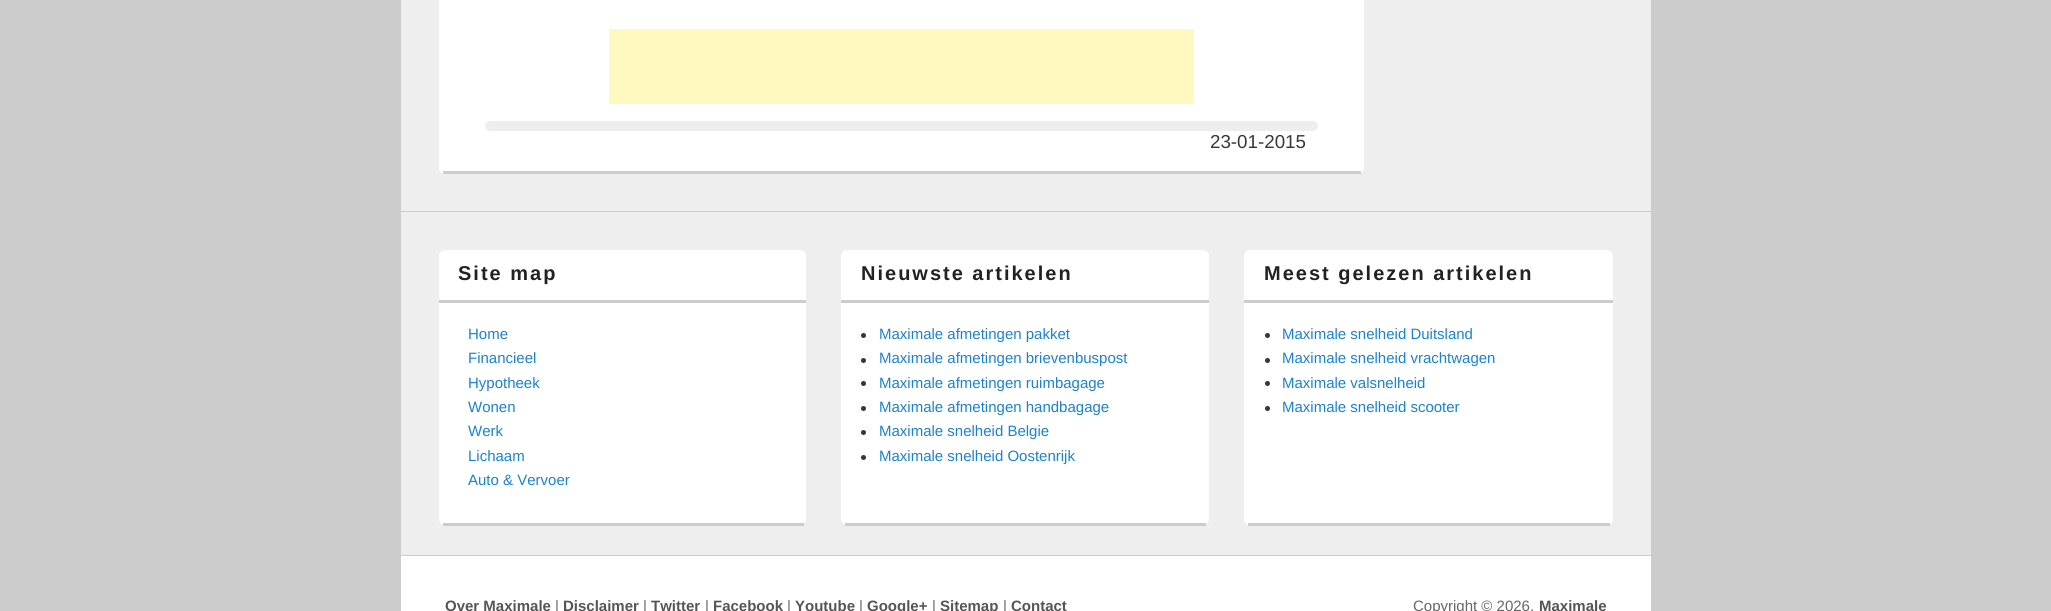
import math
import cairo


def write_spaced(ctx, x, y, s, letter, word):
	ctx.move_to(x, y)
	for ch in s:
		ctx.show_text(ch)
		ctx.rel_move_to(letter + word * (ch == ' '), 0)

def round_path(ctx, x, y, w, h, r):
	ctx.new_sub_path()
	for i, (u, v) in enumerate([(x + w - r, y + h - r), (x + r, y + h - r), (x + r, y + r), (x + w - r, y + r)]):
		ctx.arc(u, v, r, i * math.pi / 2, (i + 1) * math.pi / 2)
	ctx.close_path()

def draw(ctx):
	ctx.set_source_rgb(0.8, 0.8, 0.8)
	ctx.paint()
	ctx.set_source_rgb(0.933, 0.933, 0.933)
	ctx.rectangle(401, 0, 1250, 555)
	ctx.fill()
	ctx.set_source_rgb(1, 1, 1)
	round_path(ctx, 439, -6, 925, 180, 6)
	ctx.fill()
	ctx.set_source_rgb(0.8, 0.8, 0.8)
	ctx.rectangle(443, 171, 918, 3)
	ctx.fill()
	ctx.set_source_rgb(1, 0.976, 0.753)
	ctx.rectangle(609, 29, 585, 75)
	ctx.fill()
	ctx.set_source_rgb(0.933, 0.933, 0.933)
	round_path(ctx, 485, 121, 833, 10, 5)
	ctx.fill()
	ctx.select_font_face('Liberation Sans')
	ctx.set_font_size(18.75)
	ctx.set_source_rgb(0.22, 0.22, 0.22)
	ctx.move_to(1210, 148)
	ctx.show_text('23-01-2015')
	ctx.set_source_rgb(0.8, 0.8, 0.8)
	ctx.rectangle(401, 211, 1250, 1)
	ctx.fill()
	ctx.set_source_rgb(1, 1, 1)
	round_path(ctx, 439, 250, 367, 275, 6)
	ctx.fill()
	ctx.set_source_rgb(0.8, 0.8, 0.8)
	ctx.rectangle(443, 523, 361, 3)
	ctx.fill()
	ctx.rectangle(439, 300, 367, 3)
	ctx.fill()
	ctx.select_font_face('Liberation Sans', cairo.FONT_SLANT_NORMAL, cairo.FONT_WEIGHT_BOLD)
	ctx.set_font_size(20)
	ctx.set_source_rgb(0.133, 0.133, 0.133)
	write_spaced(ctx, 458, 280, 'Site map', 2, 0)
	ctx.select_font_face('Liberation Sans')
	ctx.set_font_size(15)
	ctx.set_source_rgb(0.098, 0.51, 0.82)
	for x, y, s in [
		(468, 339, 'Home'),
		(468, 363, 'Financieel'),
		(468, 388, 'Hypotheek'),
		(468, 412, 'Wonen'),
		(468, 436, 'Werk'),
		(468, 461, 'Lichaam'),
		(468, 485, 'Auto & Vervoer'),
	]:
		ctx.move_to(x, y)
		ctx.show_text(s)
	ctx.set_source_rgb(1, 1, 1)
	round_path(ctx, 841, 250, 368, 275, 6)
	ctx.fill()
	ctx.set_source_rgb(0.8, 0.8, 0.8)
	ctx.rectangle(845, 523, 361, 3)
	ctx.fill()
	ctx.rectangle(841, 300, 368, 3)
	ctx.fill()
	ctx.select_font_face('Liberation Sans', cairo.FONT_SLANT_NORMAL, cairo.FONT_WEIGHT_BOLD)
	ctx.set_font_size(20)
	ctx.set_source_rgb(0.133, 0.133, 0.133)
	write_spaced(ctx, 861, 280, 'Nieuwste artikelen', 2, 0)
	ctx.set_source_rgb(0.216, 0.216, 0.216)
	ctx.new_path()
	ctx.arc(863.5, 335.5, 2.5, 0, 2 * math.pi)
	ctx.fill()
	ctx.select_font_face('Liberation Sans')
	ctx.set_font_size(15)
	ctx.set_source_rgb(0.098, 0.51, 0.82)
	ctx.move_to(879, 339)
	ctx.show_text('Maximale afmetingen pakket')
	ctx.set_source_rgb(0.216, 0.216, 0.216)
	ctx.new_path()
	ctx.arc(863.5, 360.5, 2.5, 0, 2 * math.pi)
	ctx.fill()
	ctx.set_source_rgb(0.098, 0.51, 0.82)
	ctx.move_to(879, 363)
	ctx.show_text('Maximale afmetingen brievenbuspost')
	ctx.set_source_rgb(0.216, 0.216, 0.216)
	ctx.new_path()
	ctx.arc(863.5, 383.5, 2.5, 0, 2 * math.pi)
	ctx.fill()
	ctx.set_source_rgb(0.098, 0.51, 0.82)
	ctx.move_to(879, 388)
	ctx.show_text('Maximale afmetingen ruimbagage')
	ctx.set_source_rgb(0.216, 0.216, 0.216)
	ctx.new_path()
	ctx.arc(863.5, 408.5, 2.5, 0, 2 * math.pi)
	ctx.fill()
	ctx.set_source_rgb(0.098, 0.51, 0.82)
	ctx.move_to(879, 412)
	ctx.show_text('Maximale afmetingen handbagage')
	ctx.set_source_rgb(0.216, 0.216, 0.216)
	ctx.new_path()
	ctx.arc(863.5, 432.5, 2.5, 0, 2 * math.pi)
	ctx.fill()
	ctx.set_source_rgb(0.098, 0.51, 0.82)
	ctx.move_to(879, 436)
	ctx.show_text('Maximale snelheid Belgie')
	ctx.set_source_rgb(0.216, 0.216, 0.216)
	ctx.new_path()
	ctx.arc(863.5, 457.5, 2.5, 0, 2 * math.pi)
	ctx.fill()
	ctx.set_source_rgb(0.098, 0.51, 0.82)
	ctx.move_to(879, 461)
	ctx.show_text('Maximale snelheid Oostenrijk')
	ctx.set_source_rgb(1, 1, 1)
	round_path(ctx, 1244, 250, 369, 275, 6)
	ctx.fill()
	ctx.set_source_rgb(0.8, 0.8, 0.8)
	ctx.rectangle(1248, 523, 362, 3)
	ctx.fill()
	ctx.rectangle(1244, 300, 369, 3)
	ctx.fill()
	ctx.select_font_face('Liberation Sans', cairo.FONT_SLANT_NORMAL, cairo.FONT_WEIGHT_BOLD)
	ctx.set_font_size(20)
	ctx.set_source_rgb(0.133, 0.133, 0.133)
	write_spaced(ctx, 1264, 280, 'Meest gelezen artikelen', 2, 0)
	ctx.set_source_rgb(0.216, 0.216, 0.216)
	ctx.new_path()
	ctx.arc(1267.5, 335.5, 2.5, 0, 2 * math.pi)
	ctx.fill()
	ctx.select_font_face('Liberation Sans')
	ctx.set_font_size(15)
	ctx.set_source_rgb(0.098, 0.51, 0.82)
	ctx.move_to(1282, 339)
	ctx.show_text('Maximale snelheid Duitsland')
	ctx.set_source_rgb(0.216, 0.216, 0.216)
	ctx.new_path()
	ctx.arc(1267.5, 360.5, 2.5, 0, 2 * math.pi)
	ctx.fill()
	ctx.set_source_rgb(0.098, 0.51, 0.82)
	ctx.move_to(1282, 363)
	ctx.show_text('Maximale snelheid vrachtwagen')
	ctx.set_source_rgb(0.216, 0.216, 0.216)
	ctx.new_path()
	ctx.arc(1267.5, 383.5, 2.5, 0, 2 * math.pi)
	ctx.fill()
	ctx.set_source_rgb(0.098, 0.51, 0.82)
	ctx.move_to(1282, 388)
	ctx.show_text('Maximale valsnelheid')
	ctx.set_source_rgb(0.216, 0.216, 0.216)
	ctx.new_path()
	ctx.arc(1267.5, 408.5, 2.5, 0, 2 * math.pi)
	ctx.fill()
	ctx.set_source_rgb(0.098, 0.51, 0.82)
	ctx.move_to(1282, 412)
	ctx.show_text('Maximale snelheid scooter')
	ctx.set_source_rgb(1, 1, 1)
	ctx.rectangle(401, 556, 1250, 55)
	ctx.fill()
	ctx.select_font_face('Liberation Sans', cairo.FONT_SLANT_NORMAL, cairo.FONT_WEIGHT_BOLD)
	ctx.set_source_rgb(0.333, 0.333, 0.333)
	ctx.move_to(445, 611)
	ctx.show_text('Over Maximale')
	ctx.select_font_face('Liberation Sans')
	ctx.set_source_rgb(0.4, 0.4, 0.4)
	ctx.move_to(555, 611)
	ctx.show_text('|')
	ctx.select_font_face('Liberation Sans', cairo.FONT_SLANT_NORMAL, cairo.FONT_WEIGHT_BOLD)
	ctx.set_source_rgb(0.333, 0.333, 0.333)
	ctx.move_to(563, 611)
	ctx.show_text('Disclaimer')
	ctx.select_font_face('Liberation Sans')
	ctx.set_source_rgb(0.4, 0.4, 0.4)
	ctx.move_to(643, 611)
	ctx.show_text('|')
	ctx.select_font_face('Liberation Sans', cairo.FONT_SLANT_NORMAL, cairo.FONT_WEIGHT_BOLD)
	ctx.set_source_rgb(0.333, 0.333, 0.333)
	ctx.move_to(651, 611)
	ctx.show_text('Twitter')
	ctx.select_font_face('Liberation Sans')
	ctx.set_source_rgb(0.4, 0.4, 0.4)
	ctx.move_to(705, 611)
	ctx.show_text('|')
	ctx.select_font_face('Liberation Sans', cairo.FONT_SLANT_NORMAL, cairo.FONT_WEIGHT_BOLD)
	ctx.set_source_rgb(0.333, 0.333, 0.333)
	ctx.move_to(713, 611)
	ctx.show_text('Facebook')
	ctx.select_font_face('Liberation Sans')
	ctx.set_source_rgb(0.4, 0.4, 0.4)
	ctx.move_to(787, 611)
	ctx.show_text('|')
	ctx.select_font_face('Liberation Sans', cairo.FONT_SLANT_NORMAL, cairo.FONT_WEIGHT_BOLD)
	ctx.set_source_rgb(0.333, 0.333, 0.333)
	ctx.move_to(795, 611)
	ctx.show_text('Youtube')
	ctx.select_font_face('Liberation Sans')
	ctx.set_source_rgb(0.4, 0.4, 0.4)
	ctx.move_to(859, 611)
	ctx.show_text('|')
	ctx.select_font_face('Liberation Sans', cairo.FONT_SLANT_NORMAL, cairo.FONT_WEIGHT_BOLD)
	ctx.set_source_rgb(0.333, 0.333, 0.333)
	ctx.move_to(867, 611)
	ctx.show_text('Google+')
	ctx.select_font_face('Liberation Sans')
	ctx.set_source_rgb(0.4, 0.4, 0.4)
	ctx.move_to(932, 611)
	ctx.show_text('|')
	ctx.select_font_face('Liberation Sans', cairo.FONT_SLANT_NORMAL, cairo.FONT_WEIGHT_BOLD)
	ctx.set_source_rgb(0.333, 0.333, 0.333)
	ctx.move_to(940, 611)
	ctx.show_text('Sitemap')
	ctx.select_font_face('Liberation Sans')
	ctx.set_source_rgb(0.4, 0.4, 0.4)
	ctx.move_to(1003, 611)
	ctx.show_text('|')
	ctx.select_font_face('Liberation Sans', cairo.FONT_SLANT_NORMAL, cairo.FONT_WEIGHT_BOLD)
	ctx.set_source_rgb(0.333, 0.333, 0.333)
	ctx.move_to(1011, 611)
	ctx.show_text('Contact')
	ctx.select_font_face('Liberation Sans')
	ctx.set_source_rgb(0.4, 0.4, 0.4)
	ctx.move_to(1413, 611)
	ctx.show_text('Copyright © 2026,')
	ctx.select_font_face('Liberation Sans', cairo.FONT_SLANT_NORMAL, cairo.FONT_WEIGHT_BOLD)
	ctx.set_source_rgb(0.333, 0.333, 0.333)
	ctx.move_to(1539, 611)
	ctx.show_text('Maximale')


surface = cairo.ImageSurface(cairo.FORMAT_RGB24, 2051, 611)
ctx = cairo.Context(surface)
options = cairo.FontOptions()
options.set_hint_metrics(cairo.HINT_METRICS_OFF)
options.set_hint_style(cairo.HINT_STYLE_NONE)
ctx.set_font_options(options)
ctx.set_miter_limit(4)
draw(ctx)
surface.write_to_png('image.png')
